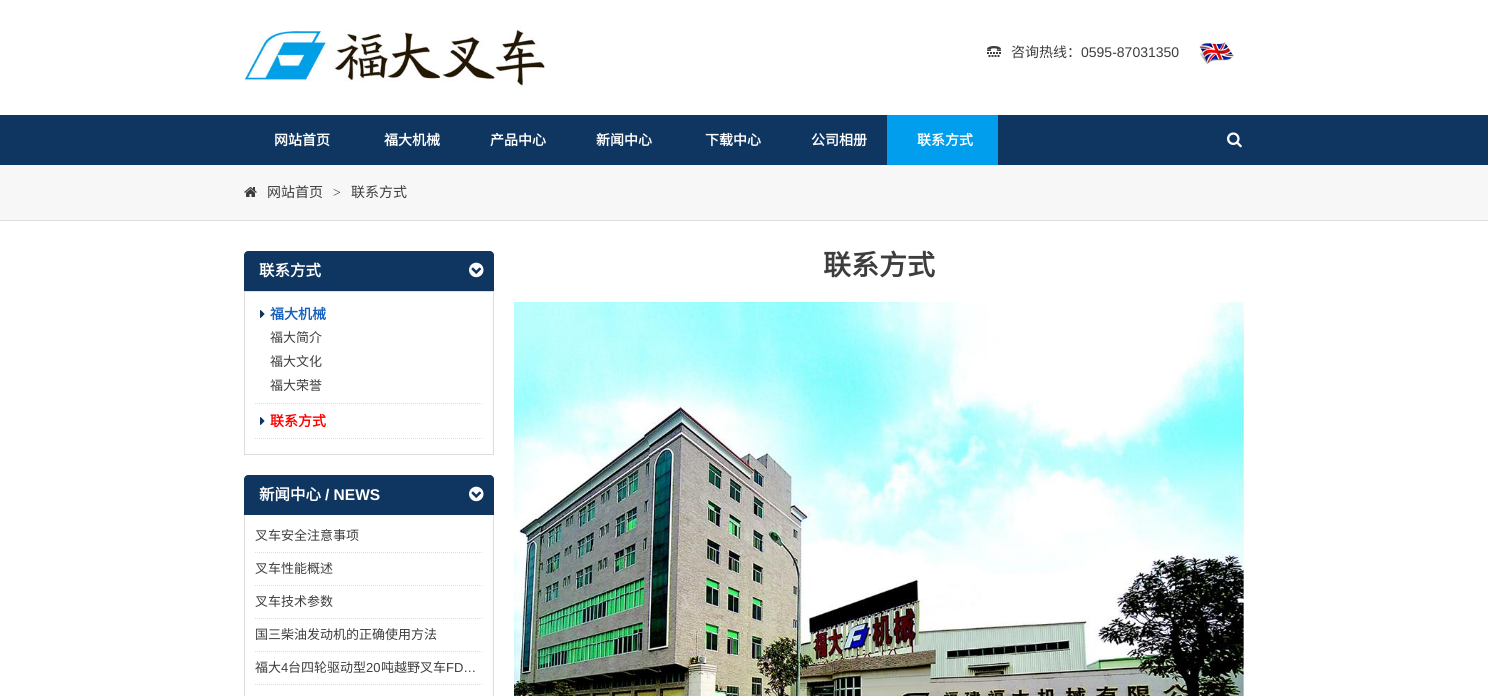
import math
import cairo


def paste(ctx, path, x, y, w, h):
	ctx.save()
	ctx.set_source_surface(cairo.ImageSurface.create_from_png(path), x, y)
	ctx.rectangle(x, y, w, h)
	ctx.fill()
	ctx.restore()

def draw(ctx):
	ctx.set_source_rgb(1, 1, 1)
	ctx.paint()
	paste(ctx, 'media/1.png', 244, 26, 301, 61)
	paste(ctx, 'media/2.png', 987, 46, 14, 11)
	ctx.select_font_face('Noto Sans CJK SC')
	ctx.set_font_size(14)
	ctx.set_source_rgb(0.239, 0.239, 0.239)
	ctx.move_to(1011, 57)
	ctx.show_text('咨询热线：')
	ctx.select_font_face('Liberation Sans')
	ctx.move_to(1081, 57)
	ctx.show_text('0595-87031350')
	paste(ctx, 'media/3.png', 1199, 42, 35, 22)
	ctx.set_source_rgb(0.059, 0.212, 0.38)
	ctx.rectangle(0, 115, 1488, 50)
	ctx.fill()
	ctx.select_font_face('Noto Sans CJK SC', cairo.FONT_SLANT_NORMAL, cairo.FONT_WEIGHT_BOLD)
	ctx.set_source_rgb(1, 1, 1)
	for x, y, s in [
		(274, 145, '网站首页'),
		(384, 145, '福大机械'),
		(490, 145, '产品中心'),
		(596, 145, '新闻中心'),
		(705, 145, '下载中心'),
		(811, 145, '公司相册'),
	]:
		ctx.move_to(x, y)
		ctx.show_text(s)
	ctx.set_source_rgb(0, 0.62, 0.929)
	ctx.rectangle(887, 115, 111, 50)
	ctx.fill()
	ctx.set_source_rgb(1, 1, 1)
	ctx.move_to(917, 145)
	ctx.show_text('联系方式')
	paste(ctx, 'media/4.png', 1227, 132, 15, 16)
	ctx.set_source_rgb(0.965, 0.965, 0.965)
	ctx.rectangle(0, 165, 1488, 55)
	ctx.fill()
	ctx.set_source_rgb(0.867, 0.867, 0.867)
	ctx.rectangle(0, 220, 1488, 1)
	ctx.fill()
	paste(ctx, 'media/5.png', 244, 187, 13, 10)
	ctx.select_font_face('Noto Sans CJK SC')
	ctx.set_source_rgb(0.239, 0.239, 0.239)
	ctx.move_to(267, 197)
	ctx.show_text('网站首页')
	ctx.select_font_face('Liberation Serif')
	ctx.move_to(333, 197)
	ctx.show_text('>')
	ctx.select_font_face('Noto Sans CJK SC')
	ctx.move_to(351, 197)
	ctx.show_text('联系方式')
	ctx.set_source_rgb(0.059, 0.212, 0.38)
	ctx.new_path()
	ctx.move_to(248, 251)
	ctx.line_to(490, 251)
	ctx.curve_to(492, 251, 494, 253, 494, 255)
	ctx.line_to(494, 291)
	ctx.line_to(244, 291)
	ctx.line_to(244, 255)
	ctx.curve_to(244, 253, 246, 251, 248, 251)
	ctx.close_path()
	ctx.fill()
	ctx.select_font_face('Noto Sans CJK SC', cairo.FONT_SLANT_NORMAL, cairo.FONT_WEIGHT_BOLD)
	ctx.set_font_size(15.5)
	ctx.set_source_rgb(1, 1, 1)
	ctx.move_to(259, 276)
	ctx.show_text('联系方式')
	paste(ctx, 'media/6.png', 469, 262, 15, 16)
	ctx.rectangle(244.5, 291.5, 249, 163)
	ctx.set_source_rgb(0.867, 0.867, 0.867)
	ctx.set_line_width(1)
	ctx.stroke()
	paste(ctx, 'media/7.png', 260, 310, 5, 8)
	ctx.set_font_size(14)
	ctx.set_source_rgb(0.078, 0.373, 0.733)
	ctx.move_to(270, 319)
	ctx.show_text('福大机械')
	ctx.new_path()
	ctx.move_to(255, 403.5)
	ctx.line_to(483, 403.5)
	ctx.set_source_rgb(0.867, 0.867, 0.867)
	ctx.set_dash([1, 1])
	ctx.stroke()
	ctx.select_font_face('Noto Sans CJK SC')
	ctx.set_font_size(13)
	ctx.set_source_rgb(0.239, 0.239, 0.239)
	for x, y, s in [
		(270, 342, '福大简介'),
		(270, 366, '福大文化'),
		(270, 390, '福大荣誉'),
	]:
		ctx.move_to(x, y)
		ctx.show_text(s)
	paste(ctx, 'media/7.png', 260, 417, 5, 8)
	ctx.select_font_face('Noto Sans CJK SC', cairo.FONT_SLANT_NORMAL, cairo.FONT_WEIGHT_BOLD)
	ctx.set_font_size(14)
	ctx.set_source_rgb(1, 0, 0)
	ctx.move_to(270, 426)
	ctx.show_text('联系方式')
	ctx.new_path()
	ctx.move_to(255, 438.5)
	ctx.line_to(483, 438.5)
	ctx.set_source_rgb(0.867, 0.867, 0.867)
	ctx.stroke()
	ctx.set_source_rgb(0.059, 0.212, 0.38)
	ctx.new_path()
	ctx.move_to(248, 475)
	ctx.line_to(490, 475)
	ctx.curve_to(492, 475, 494, 477, 494, 479)
	ctx.line_to(494, 515)
	ctx.line_to(244, 515)
	ctx.line_to(244, 479)
	ctx.curve_to(244, 477, 246, 475, 248, 475)
	ctx.close_path()
	ctx.fill()
	ctx.set_font_size(15.5)
	ctx.set_source_rgb(1, 1, 1)
	ctx.move_to(259, 500)
	ctx.show_text('新闻中心')
	ctx.select_font_face('Liberation Sans', cairo.FONT_SLANT_NORMAL, cairo.FONT_WEIGHT_BOLD)
	ctx.move_to(325, 500)
	ctx.show_text('/ NEWS')
	paste(ctx, 'media/6.png', 469, 486, 15, 16)
	ctx.set_source_rgb(0.867, 0.867, 0.867)
	ctx.rectangle(493, 515, 1, 181)
	ctx.fill()
	ctx.rectangle(244, 515, 1, 181)
	ctx.fill()
	ctx.new_path()
	ctx.move_to(255, 552.5)
	ctx.line_to(483, 552.5)
	ctx.stroke()
	ctx.select_font_face('Noto Sans CJK SC')
	ctx.set_font_size(13)
	ctx.set_source_rgb(0.239, 0.239, 0.239)
	ctx.move_to(255, 540)
	ctx.show_text('叉车安全注意事项')
	ctx.new_path()
	ctx.move_to(255, 585.5)
	ctx.line_to(483, 585.5)
	ctx.set_source_rgb(0.867, 0.867, 0.867)
	ctx.stroke()
	ctx.set_source_rgb(0.239, 0.239, 0.239)
	ctx.move_to(255, 573)
	ctx.show_text('叉车性能概述')
	ctx.new_path()
	ctx.move_to(255, 618.5)
	ctx.line_to(483, 618.5)
	ctx.set_source_rgb(0.867, 0.867, 0.867)
	ctx.stroke()
	ctx.set_source_rgb(0.239, 0.239, 0.239)
	ctx.move_to(255, 606)
	ctx.show_text('叉车技术参数')
	ctx.new_path()
	ctx.move_to(255, 651.5)
	ctx.line_to(483, 651.5)
	ctx.set_source_rgb(0.867, 0.867, 0.867)
	ctx.stroke()
	ctx.set_source_rgb(0.239, 0.239, 0.239)
	ctx.move_to(255, 639)
	ctx.show_text('国三柴油发动机的正确使用方法')
	ctx.new_path()
	ctx.move_to(255, 684.5)
	ctx.line_to(483, 684.5)
	ctx.set_source_rgb(0.867, 0.867, 0.867)
	ctx.stroke()
	ctx.set_source_rgb(0.239, 0.239, 0.239)
	ctx.move_to(255, 672)
	ctx.show_text('福大')
	ctx.select_font_face('Liberation Sans')
	ctx.move_to(281, 672)
	ctx.show_text('4')
	ctx.select_font_face('Noto Sans CJK SC')
	ctx.move_to(288, 672)
	ctx.show_text('台四轮驱动型')
	ctx.select_font_face('Liberation Sans')
	ctx.move_to(366, 672)
	ctx.show_text('20')
	ctx.select_font_face('Noto Sans CJK SC')
	ctx.move_to(381, 672)
	ctx.show_text('吨越野叉车')
	ctx.select_font_face('Liberation Sans')
	ctx.move_to(446, 672)
	ctx.show_text('FD…')
	ctx.select_font_face('Noto Sans CJK SC', cairo.FONT_SLANT_NORMAL, cairo.FONT_WEIGHT_BOLD)
	ctx.set_font_size(28)
	ctx.move_to(823, 275)
	ctx.show_text('联系方式')
	paste(ctx, 'media/8.png', 514, 302, 730, 394)


surface = cairo.ImageSurface(cairo.FORMAT_RGB24, 1488, 696)
ctx = cairo.Context(surface)
options = cairo.FontOptions()
options.set_hint_metrics(cairo.HINT_METRICS_OFF)
options.set_hint_style(cairo.HINT_STYLE_NONE)
ctx.set_font_options(options)
ctx.set_miter_limit(4)
draw(ctx)
surface.write_to_png('image.png')
